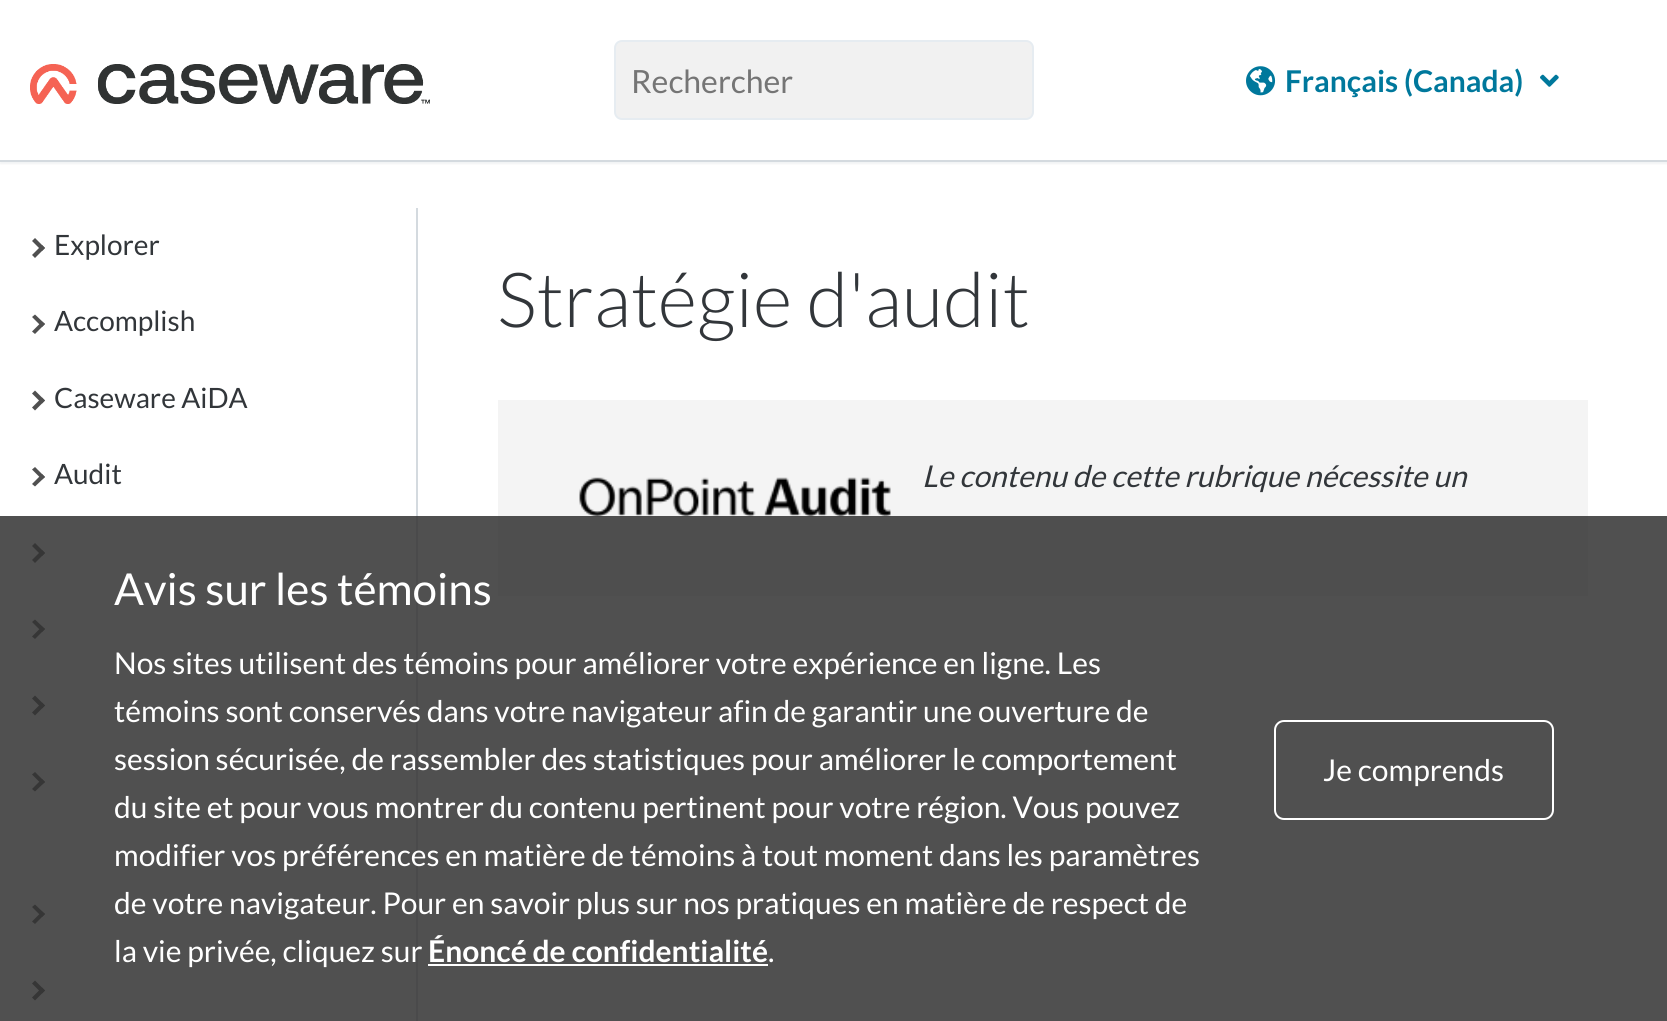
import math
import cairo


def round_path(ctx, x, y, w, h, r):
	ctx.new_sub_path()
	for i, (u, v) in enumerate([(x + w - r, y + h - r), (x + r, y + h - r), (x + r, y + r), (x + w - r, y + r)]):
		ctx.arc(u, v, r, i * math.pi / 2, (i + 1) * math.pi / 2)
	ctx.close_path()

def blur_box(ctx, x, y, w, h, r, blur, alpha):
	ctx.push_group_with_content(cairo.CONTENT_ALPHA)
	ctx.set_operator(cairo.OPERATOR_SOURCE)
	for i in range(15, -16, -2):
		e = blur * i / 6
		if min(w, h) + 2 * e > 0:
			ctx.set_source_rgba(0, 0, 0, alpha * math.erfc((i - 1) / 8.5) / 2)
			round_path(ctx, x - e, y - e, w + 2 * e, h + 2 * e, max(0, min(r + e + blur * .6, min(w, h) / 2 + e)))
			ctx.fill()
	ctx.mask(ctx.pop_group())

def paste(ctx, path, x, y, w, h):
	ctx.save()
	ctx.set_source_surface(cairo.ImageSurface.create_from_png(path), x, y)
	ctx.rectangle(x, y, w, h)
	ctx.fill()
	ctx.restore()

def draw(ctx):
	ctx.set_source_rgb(1, 1, 1)
	ctx.paint()
	ctx.save()
	ctx.rectangle(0, 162, 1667, 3)
	ctx.clip()
	ctx.set_source_rgb(0.455, 0.506, 0.553)
	blur_box(ctx, 0, 2, 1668, 162, 0, 1, 0.1)
	ctx.restore()
	ctx.set_source_rgb(0.831, 0.855, 0.875)
	ctx.rectangle(0, 160, 1667, 2)
	ctx.fill()
	paste(ctx, 'media/1.png', 30, 64, 400, 40)
	ctx.set_source_rgb(0.945, 0.945, 0.945)
	round_path(ctx, 615, 41, 418, 78, 7)
	ctx.fill_preserve()
	ctx.set_source_rgb(0.902, 0.925, 0.945)
	ctx.stroke()
	ctx.select_font_face('Lato')
	ctx.set_font_size(32)
	ctx.set_source_rgb(0.459, 0.459, 0.459)
	ctx.move_to(631, 93)
	ctx.show_text('Rechercher')
	paste(ctx, 'media/2.png', 1246, 66, 30, 30)
	ctx.select_font_face('Lato', cairo.FONT_SLANT_NORMAL, cairo.FONT_WEIGHT_BOLD)
	ctx.set_font_size(30)
	ctx.set_source_rgb(0, 0.471, 0.612)
	ctx.move_to(1285, 92)
	ctx.show_text('Français (Canada)')
	paste(ctx, 'media/3.png', 1540, 74, 19, 13)
	ctx.set_source_rgb(0.831, 0.855, 0.875)
	ctx.rectangle(416, 208, 2, 813)
	ctx.fill()
	ctx.set_source_rgb(0.314, 0.314, 0.314)
	ctx.new_path()
	ctx.move_to(32, 241)
	ctx.line_to(35, 238)
	ctx.line_to(45, 248)
	ctx.line_to(42, 251)
	ctx.close_path()
	ctx.fill()
	ctx.new_path()
	ctx.move_to(32, 255)
	ctx.line_to(42, 245)
	ctx.line_to(45, 248)
	ctx.line_to(35, 258)
	ctx.close_path()
	ctx.fill()
	ctx.select_font_face('Lato')
	ctx.set_font_size(28)
	ctx.set_source_rgb(0.196, 0.212, 0.227)
	ctx.move_to(54, 255)
	ctx.show_text('Explorer')
	ctx.set_source_rgb(0.314, 0.314, 0.314)
	ctx.new_path()
	ctx.move_to(32, 317)
	ctx.line_to(35, 314.5)
	ctx.line_to(45, 324)
	ctx.line_to(42, 327)
	ctx.close_path()
	ctx.fill()
	ctx.new_path()
	ctx.move_to(32, 331.5)
	ctx.line_to(42, 321.5)
	ctx.line_to(45, 324)
	ctx.line_to(35, 334)
	ctx.close_path()
	ctx.fill()
	ctx.set_source_rgb(0.196, 0.212, 0.227)
	ctx.move_to(54, 331)
	ctx.show_text('Accomplish')
	ctx.set_source_rgb(0.314, 0.314, 0.314)
	ctx.new_path()
	ctx.move_to(32, 393.5)
	ctx.line_to(35, 390.5)
	ctx.line_to(45, 400.5)
	ctx.line_to(42, 403.5)
	ctx.close_path()
	ctx.fill()
	ctx.new_path()
	ctx.move_to(32, 407.5)
	ctx.line_to(42, 397.5)
	ctx.line_to(45, 400.5)
	ctx.line_to(35, 410.5)
	ctx.close_path()
	ctx.fill()
	ctx.set_source_rgb(0.196, 0.212, 0.227)
	ctx.move_to(54, 408)
	ctx.show_text('Caseware AiDA')
	ctx.set_source_rgb(0.314, 0.314, 0.314)
	ctx.new_path()
	ctx.move_to(32, 469.5)
	ctx.line_to(35, 467)
	ctx.line_to(45, 477)
	ctx.line_to(42, 479.5)
	ctx.close_path()
	ctx.fill()
	ctx.new_path()
	ctx.move_to(32, 484)
	ctx.line_to(42, 474)
	ctx.line_to(45, 477)
	ctx.line_to(35, 486.5)
	ctx.close_path()
	ctx.fill()
	ctx.set_source_rgb(0.196, 0.212, 0.227)
	ctx.move_to(54, 484)
	ctx.show_text('Audit')
	ctx.set_source_rgb(0.314, 0.314, 0.314)
	ctx.new_path()
	ctx.move_to(32, 546)
	ctx.line_to(35, 543)
	ctx.line_to(45, 553)
	ctx.line_to(42, 556)
	ctx.close_path()
	ctx.fill()
	ctx.new_path()
	ctx.move_to(32, 560)
	ctx.line_to(42, 550)
	ctx.line_to(45, 553)
	ctx.line_to(35, 563)
	ctx.close_path()
	ctx.fill()
	ctx.new_path()
	ctx.move_to(32, 622)
	ctx.line_to(35, 619.5)
	ctx.line_to(45, 629)
	ctx.line_to(42, 632)
	ctx.close_path()
	ctx.fill()
	ctx.new_path()
	ctx.move_to(32, 636.5)
	ctx.line_to(42, 626.5)
	ctx.line_to(45, 629)
	ctx.line_to(35, 639)
	ctx.close_path()
	ctx.fill()
	ctx.new_path()
	ctx.move_to(32, 698.5)
	ctx.line_to(35, 695.5)
	ctx.line_to(45, 705.5)
	ctx.line_to(42, 708.5)
	ctx.close_path()
	ctx.fill()
	ctx.new_path()
	ctx.move_to(32, 712.5)
	ctx.line_to(42, 702.5)
	ctx.line_to(45, 705.5)
	ctx.line_to(35, 715.5)
	ctx.close_path()
	ctx.fill()
	ctx.new_path()
	ctx.move_to(32, 774.5)
	ctx.line_to(35, 772)
	ctx.line_to(45, 782)
	ctx.line_to(42, 784.5)
	ctx.close_path()
	ctx.fill()
	ctx.new_path()
	ctx.move_to(32, 789)
	ctx.line_to(42, 779)
	ctx.line_to(45, 782)
	ctx.line_to(35, 791.5)
	ctx.close_path()
	ctx.fill()
	ctx.new_path()
	ctx.move_to(32, 907)
	ctx.line_to(35, 904.5)
	ctx.line_to(45, 914)
	ctx.line_to(42, 917)
	ctx.close_path()
	ctx.fill()
	ctx.new_path()
	ctx.move_to(32, 921.5)
	ctx.line_to(42, 911.5)
	ctx.line_to(45, 914)
	ctx.line_to(35, 924)
	ctx.close_path()
	ctx.fill()
	ctx.new_path()
	ctx.move_to(32, 983.5)
	ctx.line_to(35, 980.5)
	ctx.line_to(45, 990.5)
	ctx.line_to(42, 993.5)
	ctx.close_path()
	ctx.fill()
	ctx.new_path()
	ctx.move_to(32, 997.5)
	ctx.line_to(42, 987.5)
	ctx.line_to(45, 990.5)
	ctx.line_to(35, 1000.5)
	ctx.close_path()
	ctx.fill()
	ctx.select_font_face('Lato Light')
	ctx.set_font_size(76)
	ctx.set_source_rgb(0.196, 0.212, 0.227)
	ctx.move_to(497, 327)
	ctx.show_text('Stratégie d\'audit')
	ctx.set_source_rgb(0.957, 0.957, 0.957)
	ctx.rectangle(498, 400, 1090, 196)
	ctx.fill()
	paste(ctx, 'media/4.png', 579, 477, 312, 40)
	ctx.select_font_face('Lato', cairo.FONT_SLANT_ITALIC)
	ctx.set_font_size(30)
	ctx.set_source_rgb(0.196, 0.212, 0.227)
	ctx.move_to(922, 487)
	ctx.show_text('Le contenu de cette rubrique nécessite un')
	ctx.set_source_rgba(0.196, 0.196, 0.196, 0.85)
	ctx.rectangle(0, 516, 1667, 505)
	ctx.fill()
	ctx.select_font_face('Lato')
	ctx.set_font_size(44)
	ctx.set_source_rgb(1, 1, 1)
	ctx.move_to(114, 605)
	ctx.show_text('Avis sur les témoins')
	ctx.set_font_size(30)
	for x, y, s in [
		(114, 674, 'Nos sites utilisent des témoins pour améliorer votre expérience en ligne. Les'),
		(114, 722, 'témoins sont conservés dans votre navigateur afin de garantir une ouverture de'),
		(114, 770, 'session sécurisée, de rassembler des statistiques pour améliorer le comportement'),
		(114, 818, 'du site et pour vous montrer du contenu pertinent pour votre région. Vous pouvez'),
		(114, 866, 'modifier vos préférences en matière de témoins à tout moment dans les paramètres'),
		(114, 914, 'de votre navigateur. Pour en savoir plus sur nos pratiques en matière de respect de'),
		(114, 962, 'la vie privée, cliquez sur'),
	]:
		ctx.move_to(x, y)
		ctx.show_text(s)
	ctx.select_font_face('Lato', cairo.FONT_SLANT_NORMAL, cairo.FONT_WEIGHT_BOLD)
	ctx.move_to(428, 962)
	ctx.show_text('Énoncé de confidentialité')
	ctx.rectangle(428, 964, 340, 2)
	ctx.fill()
	ctx.select_font_face('Lato')
	ctx.move_to(768, 962)
	ctx.show_text('.')
	round_path(ctx, 1275, 721, 278, 98, 9)
	ctx.stroke()
	ctx.move_to(1323, 781)
	ctx.show_text('Je comprends')


surface = cairo.ImageSurface(cairo.FORMAT_RGB24, 1667, 1021)
ctx = cairo.Context(surface)
options = cairo.FontOptions()
options.set_hint_metrics(cairo.HINT_METRICS_OFF)
options.set_hint_style(cairo.HINT_STYLE_NONE)
ctx.set_font_options(options)
ctx.set_miter_limit(4)
draw(ctx)
surface.write_to_png('image.png')
